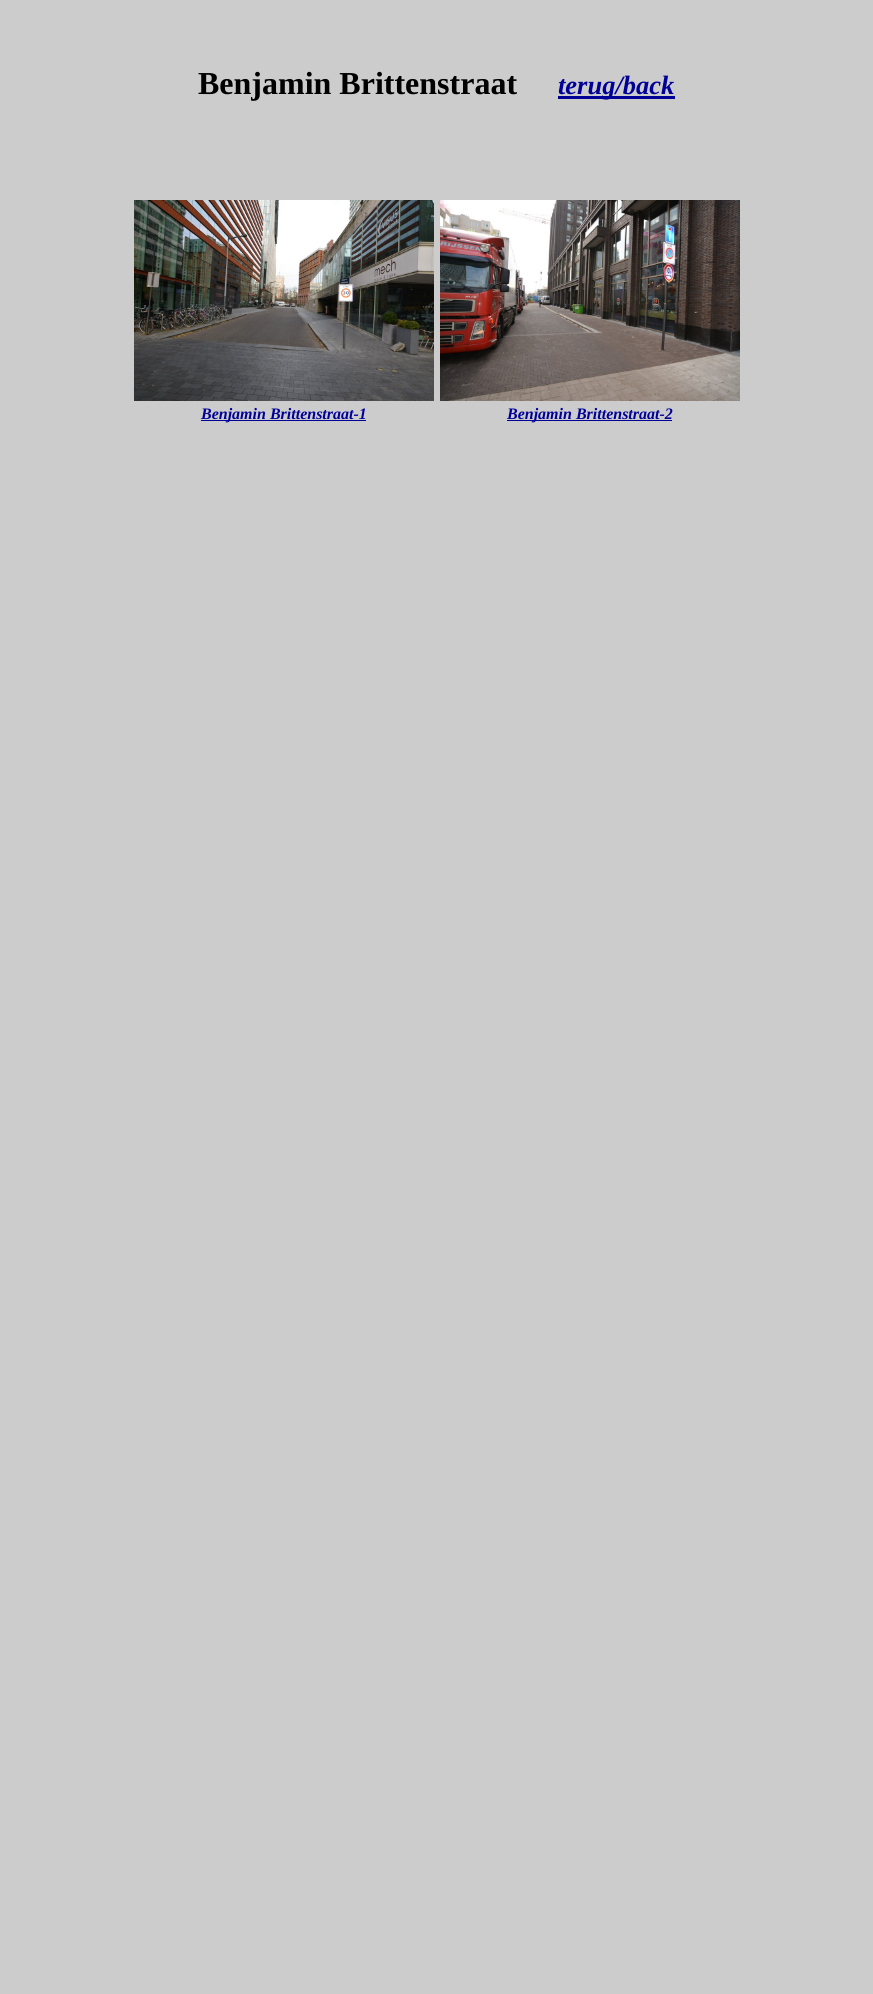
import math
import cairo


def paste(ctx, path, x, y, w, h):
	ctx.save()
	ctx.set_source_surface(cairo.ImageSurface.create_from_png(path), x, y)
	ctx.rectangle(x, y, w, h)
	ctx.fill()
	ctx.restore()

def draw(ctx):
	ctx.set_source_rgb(0.8, 0.8, 0.8)
	ctx.paint()
	ctx.select_font_face('Liberation Serif', cairo.FONT_SLANT_NORMAL, cairo.FONT_WEIGHT_BOLD)
	ctx.set_font_size(32)
	ctx.set_source_rgb(0, 0, 0)
	ctx.move_to(198, 94)
	ctx.show_text('Benjamin Brittenstraat')
	ctx.set_source_rgb(0, 0, 0.6)
	ctx.rectangle(558, 96, 117, 3)
	ctx.fill()
	ctx.select_font_face('Liberation Serif', cairo.FONT_SLANT_ITALIC, cairo.FONT_WEIGHT_BOLD)
	ctx.set_font_size(26.5)
	ctx.move_to(558, 94)
	ctx.show_text('terug/back')
	paste(ctx, 'media/1.png', 134, 200, 300, 201)
	ctx.rectangle(201, 420, 165, 1)
	ctx.fill()
	ctx.set_font_size(16)
	ctx.move_to(201, 419)
	ctx.show_text('Benjamin Brittenstraat-1')
	paste(ctx, 'media/2.png', 440, 200, 300, 201)
	ctx.rectangle(507, 420, 165, 1)
	ctx.fill()
	ctx.move_to(507, 419)
	ctx.show_text('Benjamin Brittenstraat-2')


surface = cairo.ImageSurface(cairo.FORMAT_RGB24, 873, 1994)
ctx = cairo.Context(surface)
options = cairo.FontOptions()
options.set_hint_metrics(cairo.HINT_METRICS_OFF)
options.set_hint_style(cairo.HINT_STYLE_NONE)
ctx.set_font_options(options)
ctx.set_miter_limit(4)
draw(ctx)
surface.write_to_png('image.png')
